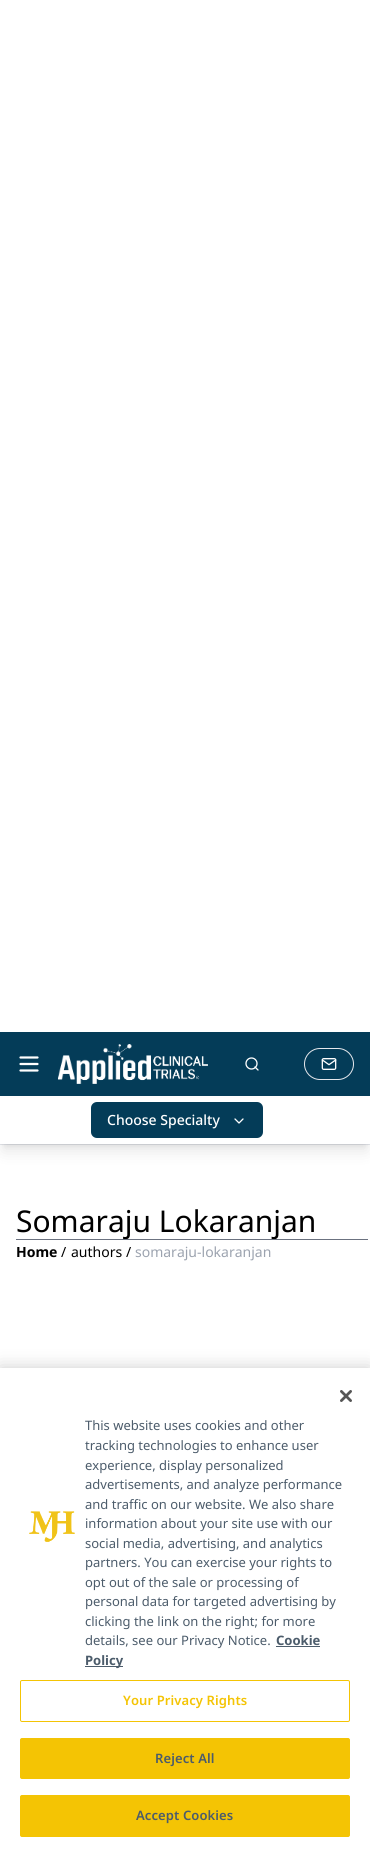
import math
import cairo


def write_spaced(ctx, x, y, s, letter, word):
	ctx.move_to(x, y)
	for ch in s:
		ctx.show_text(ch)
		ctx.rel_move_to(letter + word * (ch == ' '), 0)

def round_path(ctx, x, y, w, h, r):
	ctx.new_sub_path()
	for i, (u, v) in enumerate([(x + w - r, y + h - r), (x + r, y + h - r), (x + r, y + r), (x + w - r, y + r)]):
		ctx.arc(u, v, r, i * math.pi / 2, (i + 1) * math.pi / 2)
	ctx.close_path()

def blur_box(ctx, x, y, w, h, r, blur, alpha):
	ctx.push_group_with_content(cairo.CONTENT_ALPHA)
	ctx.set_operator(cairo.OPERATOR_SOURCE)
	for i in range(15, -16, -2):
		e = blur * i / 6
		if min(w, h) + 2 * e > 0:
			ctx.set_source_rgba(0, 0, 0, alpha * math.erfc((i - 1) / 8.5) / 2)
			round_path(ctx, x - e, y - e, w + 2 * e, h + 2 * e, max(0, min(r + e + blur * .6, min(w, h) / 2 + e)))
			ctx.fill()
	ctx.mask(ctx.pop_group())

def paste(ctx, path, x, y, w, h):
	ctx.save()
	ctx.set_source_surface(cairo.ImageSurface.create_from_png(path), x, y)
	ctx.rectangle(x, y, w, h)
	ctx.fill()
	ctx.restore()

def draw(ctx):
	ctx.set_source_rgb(1, 1, 1)
	ctx.paint()
	ctx.set_source_rgb(0.016, 0.235, 0.345)
	ctx.rectangle(0, 1032, 370, 64)
	ctx.fill()
	ctx.set_source_rgb(0.898, 0.906, 0.922)
	ctx.rectangle(0, 1144, 370, 1)
	ctx.fill()
	ctx.new_path()
	ctx.move_to(20.5, 1057.5)
	ctx.line_to(37.5, 1057.5)
	ctx.move_to(20.5, 1064)
	ctx.line_to(37.5, 1064)
	ctx.move_to(20.5, 1070.5)
	ctx.line_to(37.5, 1070.5)
	ctx.set_source_rgb(1, 1, 1)
	ctx.set_line_width(2.2)
	ctx.set_line_cap(cairo.LINE_CAP_ROUND)
	ctx.set_line_join(cairo.LINE_JOIN_ROUND)
	ctx.stroke()
	paste(ctx, 'media/1.png', 58, 1044, 150, 40)
	ctx.arc(251.5, 1063.5, 5.5, 0, 2 * math.pi)
	ctx.set_line_width(1.3)
	ctx.set_line_cap(cairo.LINE_CAP_BUTT)
	ctx.set_line_join(cairo.LINE_JOIN_MITER)
	ctx.stroke()
	ctx.new_path()
	ctx.move_to(258, 1070)
	ctx.line_to(255, 1067)
	ctx.set_line_cap(cairo.LINE_CAP_ROUND)
	ctx.set_line_join(cairo.LINE_JOIN_ROUND)
	ctx.stroke()
	round_path(ctx, 304.5, 1048.5, 49, 31, 15.5)
	ctx.set_source_rgb(0.898, 0.906, 0.922)
	ctx.set_line_width(1)
	ctx.set_line_cap(cairo.LINE_CAP_BUTT)
	ctx.set_line_join(cairo.LINE_JOIN_MITER)
	ctx.stroke()
	paste(ctx, 'media/2.png', 321, 1058, 16, 12)
	ctx.set_source_rgb(0, 0, 0)
	blur_box(ctx, 4, 1104, 362, 40, 0, 3, 0.1)
	blur_box(ctx, 3, 1109, 364, 42, 0, 7.5, 0.1)
	ctx.set_source_rgb(1, 1, 1)
	ctx.rectangle(0, 1098, 370, 46)
	ctx.fill()
	ctx.set_source_rgb(0.016, 0.235, 0.345)
	round_path(ctx, 91, 1102, 172, 36, 6)
	ctx.fill()
	ctx.select_font_face('Noto Sans Medium')
	ctx.set_font_size(14)
	ctx.set_source_rgb(1, 1, 1)
	ctx.move_to(107, 1125)
	ctx.show_text('Choose Specialty')
	ctx.new_path()
	ctx.move_to(235, 1119)
	ctx.line_to(239, 1123)
	ctx.line_to(243, 1119)
	ctx.set_line_width(1.3)
	ctx.set_line_cap(cairo.LINE_CAP_ROUND)
	ctx.set_line_join(cairo.LINE_JOIN_ROUND)
	ctx.stroke()
	ctx.select_font_face('Noto Sans')
	ctx.set_font_size(30)
	ctx.set_source_rgb(0, 0, 0)
	ctx.move_to(16, 1232)
	ctx.show_text('Somaraju Lokaranjan')
	ctx.set_source_rgb(0.42, 0.447, 0.502)
	ctx.rectangle(16, 1239, 352, 1)
	ctx.fill()
	ctx.select_font_face('Noto Sans', cairo.FONT_SLANT_NORMAL, cairo.FONT_WEIGHT_BOLD)
	ctx.set_font_size(14)
	ctx.set_source_rgb(0, 0, 0)
	ctx.move_to(16, 1257)
	ctx.show_text('Home')
	ctx.select_font_face('Noto Sans')
	for x, y, s in [
		(61, 1257, '/'),
		(71, 1257, 'authors'),
		(126, 1257, '/'),
	]:
		ctx.move_to(x, y)
		ctx.show_text(s)
	ctx.set_source_rgb(0.612, 0.639, 0.686)
	ctx.move_to(135, 1257)
	ctx.show_text('somaraju-lokaranjan')
	ctx.set_source_rgb(0, 0, 0)
	blur_box(ctx, 0, 1368, 370, 485, 0, 9, 0.2)
	ctx.set_source_rgb(1, 1, 1)
	ctx.rectangle(0, 1368, 370, 485)
	ctx.fill()
	paste(ctx, 'media/3.png', 340, 1390, 12, 12)
	paste(ctx, 'media/4.png', 29, 1511, 46, 31)
	ctx.set_font_size(13)
	ctx.set_source_rgb(0.298, 0.361, 0.42)
	for x, y, s in [
		(85, 1430, 'This website uses cookies and other'),
		(85, 1450, 'tracking technologies to enhance user'),
		(85, 1470, 'experience, display personalized'),
		(85, 1489, 'advertisements, and analyze performance'),
		(85, 1509, 'and traffic on our website. We also share'),
		(85, 1528, 'information about your site use with our'),
		(85, 1548, 'social media, advertising, and analytics'),
		(85, 1567, 'partners. You can exercise your rights to'),
		(85, 1587, 'opt out of the sale or processing of'),
		(85, 1606, 'personal data for targeted advertising by'),
		(85, 1626, 'clicking the link on the right; for more'),
		(85, 1645, 'details, see our Privacy Notice.'),
	]:
		ctx.move_to(x, y)
		ctx.show_text(s)
	ctx.select_font_face('Noto Sans', cairo.FONT_SLANT_NORMAL, cairo.FONT_WEIGHT_BOLD)
	ctx.move_to(276, 1645)
	ctx.show_text('Cookie')
	ctx.rectangle(276, 1646, 44, 1)
	ctx.fill()
	ctx.rectangle(85, 1666, 38, 1)
	ctx.fill()
	ctx.move_to(85, 1665)
	ctx.show_text('Policy')
	round_path(ctx, 20.5, 1680.5, 329, 41, 1.5)
	ctx.set_source_rgb(0.957, 0.769, 0.016)
	ctx.set_line_width(1)
	ctx.set_line_cap(cairo.LINE_CAP_BUTT)
	ctx.set_line_join(cairo.LINE_JOIN_MITER)
	ctx.stroke()
	ctx.select_font_face('Noto Sans SemiBold')
	write_spaced(ctx, 123, 1705, 'Your Privacy Rights', 0.1, 0)
	round_path(ctx, 20.5, 1738.5, 329, 40, 1.5)
	ctx.fill_preserve()
	ctx.stroke()
	ctx.set_source_rgb(0.298, 0.361, 0.42)
	write_spaced(ctx, 155, 1763, 'Reject All', 0.1, 0)
	ctx.set_source_rgb(0.957, 0.769, 0.016)
	round_path(ctx, 20.5, 1795.5, 329, 41, 1.5)
	ctx.fill_preserve()
	ctx.stroke()
	ctx.set_source_rgb(0.298, 0.361, 0.42)
	write_spaced(ctx, 136, 1820, 'Accept Cookies', 0.1, 0)


surface = cairo.ImageSurface(cairo.FORMAT_RGB24, 370, 1853)
ctx = cairo.Context(surface)
options = cairo.FontOptions()
options.set_hint_metrics(cairo.HINT_METRICS_OFF)
options.set_hint_style(cairo.HINT_STYLE_NONE)
ctx.set_font_options(options)
ctx.set_miter_limit(4)
draw(ctx)
surface.write_to_png('image.png')
